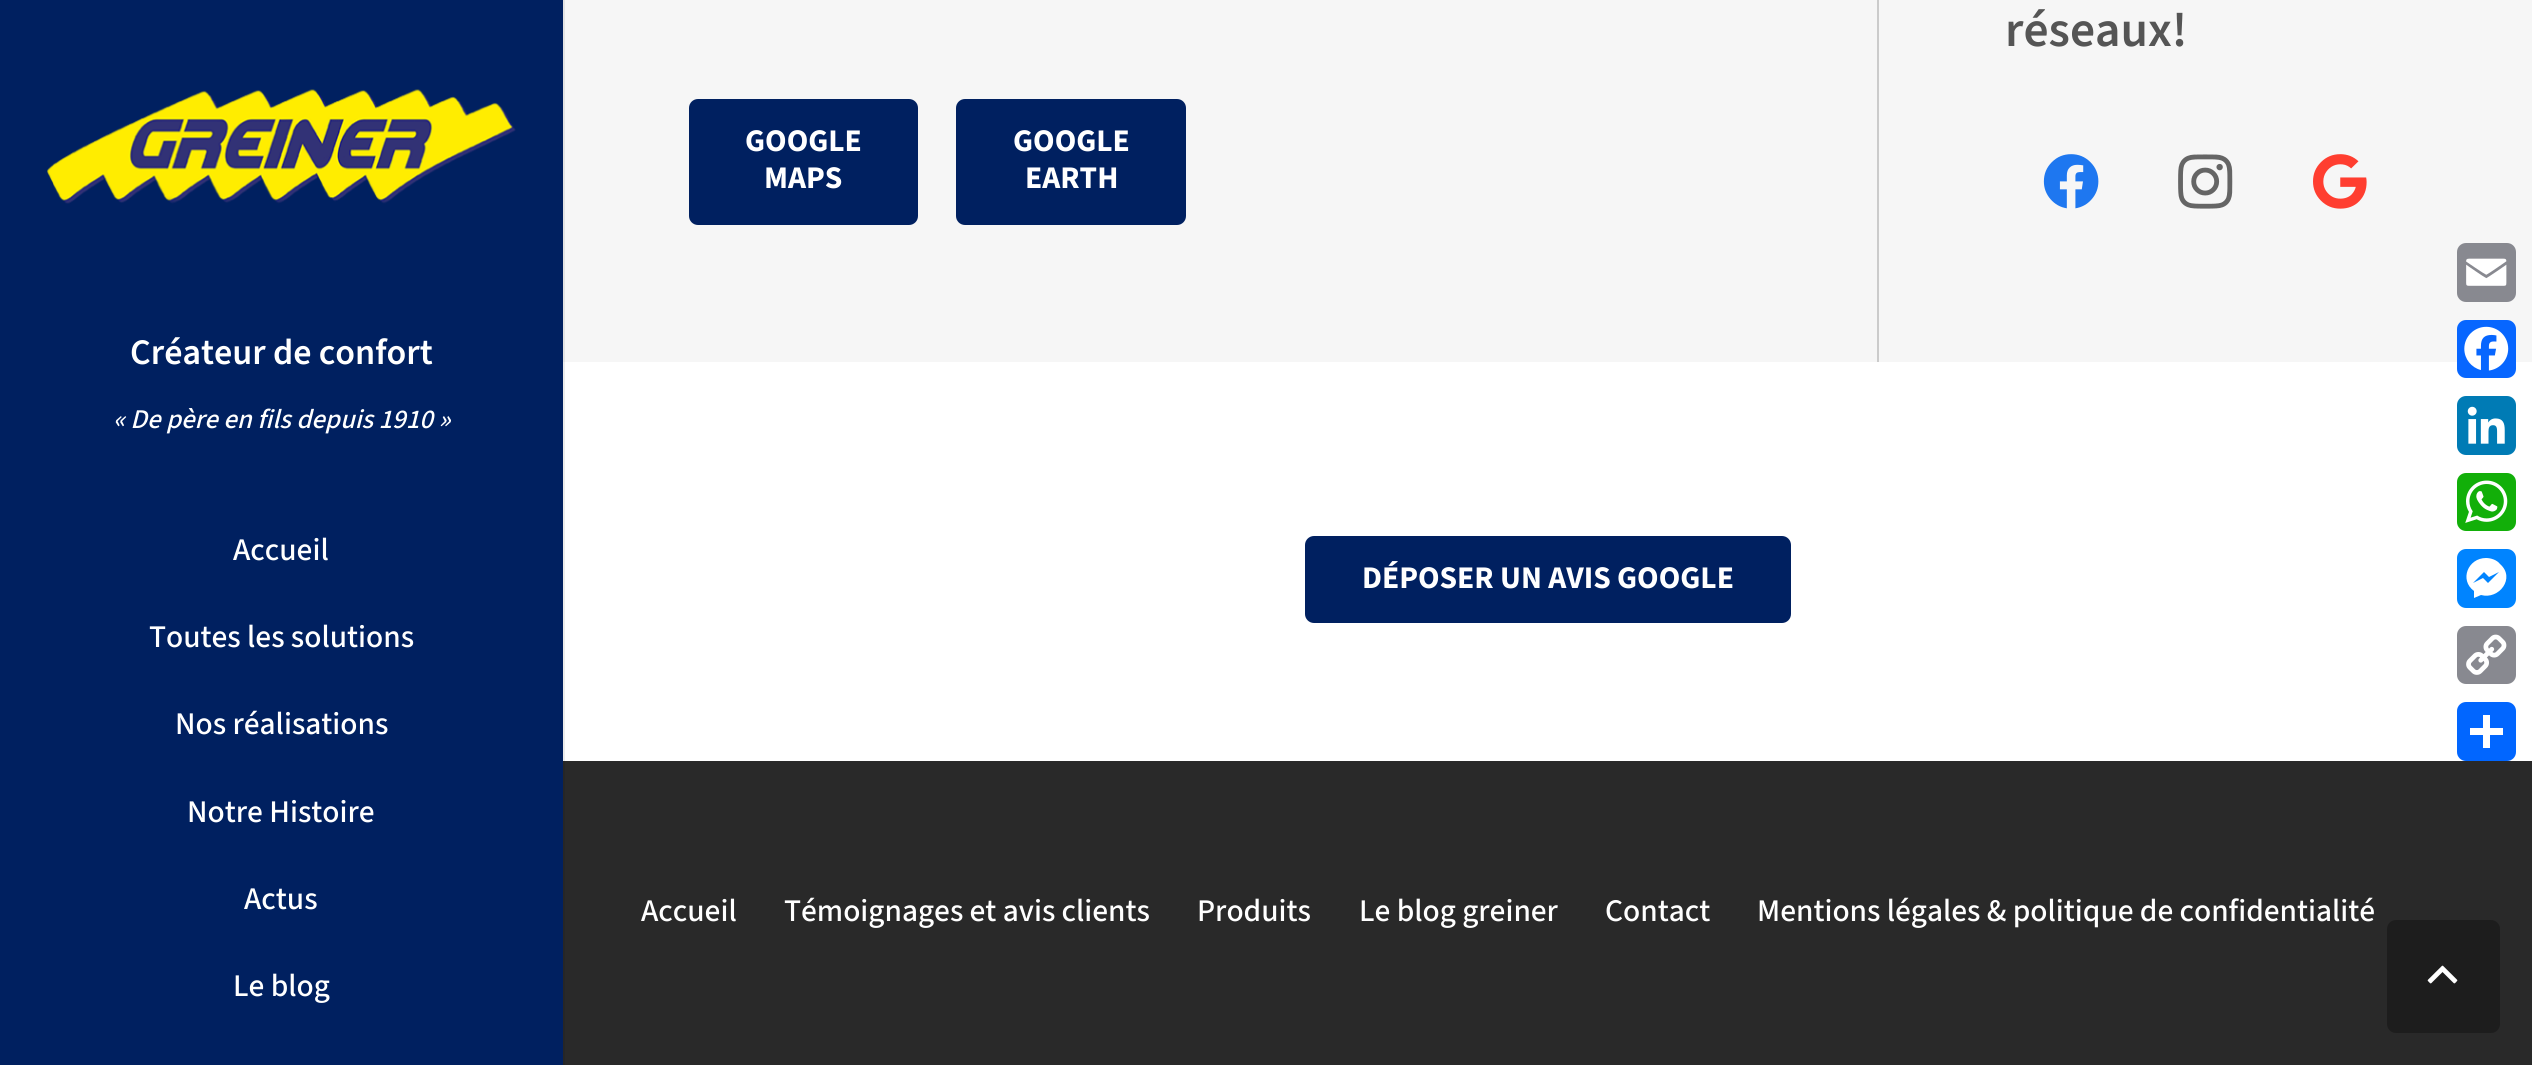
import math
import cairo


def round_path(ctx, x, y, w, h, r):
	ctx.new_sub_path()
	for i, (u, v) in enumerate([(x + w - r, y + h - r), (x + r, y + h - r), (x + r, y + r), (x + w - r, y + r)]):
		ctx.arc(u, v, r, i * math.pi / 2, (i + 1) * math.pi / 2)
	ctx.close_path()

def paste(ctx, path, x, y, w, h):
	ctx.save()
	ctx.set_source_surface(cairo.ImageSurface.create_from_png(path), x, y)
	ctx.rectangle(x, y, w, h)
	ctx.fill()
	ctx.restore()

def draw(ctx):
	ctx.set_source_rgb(0.961, 0.961, 0.961)
	ctx.paint()
	ctx.set_source_rgb(1, 1, 1)
	ctx.rectangle(563, 362, 1969, 399)
	ctx.fill()
	ctx.set_source_rgb(0.161, 0.161, 0.161)
	ctx.rectangle(563, 761, 1969, 304)
	ctx.fill()
	ctx.set_source_rgba(0, 0, 0, 0.08)
	ctx.new_path()
	ctx.move_to(2, 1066)
	ctx.line_to(2, 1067)
	ctx.line_to(565, 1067)
	ctx.line_to(565, 0)
	ctx.line_to(562, 0)
	ctx.line_to(562, 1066)
	ctx.close_path()
	ctx.fill()
	ctx.set_source_rgb(0, 0.125, 0.376)
	ctx.rectangle(0, 0, 563, 1065)
	ctx.fill()
	paste(ctx, 'media/1.png', 47, 89, 469, 115)
	ctx.select_font_face('Source Sans 3 SemiBold')
	ctx.set_font_size(36)
	ctx.set_source_rgb(1, 1, 1)
	ctx.move_to(130, 364)
	ctx.show_text('Créateur de confort')
	ctx.select_font_face('Source Sans 3 Medium', cairo.FONT_SLANT_ITALIC)
	ctx.set_font_size(27)
	ctx.move_to(113, 428)
	ctx.show_text('« De père en fils depuis 1910 »')
	ctx.select_font_face('Source Sans 3 Medium')
	ctx.set_font_size(31.5)
	for x, y, s in [
		(233, 560, 'Accueil'),
		(149, 647, 'Toutes les solutions'),
		(175, 734, 'Nos réalisations'),
		(187, 822, 'Notre Histoire'),
		(244, 909, 'Actus'),
		(233, 996, 'Le blog'),
	]:
		ctx.move_to(x, y)
		ctx.show_text(s)
	ctx.set_source_rgb(0.796, 0.796, 0.796)
	ctx.rectangle(1877, 0, 2, 362)
	ctx.fill()
	ctx.select_font_face('Source Sans 3 SemiBold')
	ctx.set_font_size(49.5)
	ctx.set_source_rgb(0.333, 0.333, 0.333)
	ctx.move_to(2005, 46)
	ctx.show_text('réseaux!')
	paste(ctx, 'media/2.png', 2043, 154, 56, 55)
	paste(ctx, 'media/3.png', 2178, 154, 55, 55)
	paste(ctx, 'media/4.png', 2313, 154, 54, 55)
	ctx.set_source_rgb(0, 0.125, 0.376)
	round_path(ctx, 689, 99, 229, 126, 9)
	ctx.fill()
	ctx.select_font_face('Source Sans 3', cairo.FONT_SLANT_NORMAL, cairo.FONT_WEIGHT_BOLD)
	ctx.set_font_size(31.5)
	ctx.set_source_rgb(1, 1, 1)
	ctx.move_to(745, 151)
	ctx.show_text('GOOGLE')
	ctx.move_to(764, 188)
	ctx.show_text('MAPS')
	ctx.set_source_rgb(0, 0.125, 0.376)
	round_path(ctx, 956, 99, 230, 126, 9)
	ctx.fill()
	ctx.set_source_rgb(1, 1, 1)
	ctx.move_to(1013, 151)
	ctx.show_text('GOOGLE')
	ctx.move_to(1025, 188)
	ctx.show_text('EARTH')
	ctx.set_source_rgb(0, 0.125, 0.376)
	round_path(ctx, 1305, 536, 486, 87, 9)
	ctx.fill()
	ctx.set_source_rgb(1, 1, 1)
	ctx.move_to(1362, 588)
	ctx.show_text('DÉPOSER UN AVIS GOOGLE')
	ctx.select_font_face('Source Sans 3 Medium')
	for x, y, s in [
		(641, 921, 'Accueil'),
		(784, 921, 'Témoignages et avis clients'),
		(1197, 921, 'Produits'),
		(1359, 921, 'Le blog greiner'),
		(1605, 921, 'Contact'),
		(1757, 921, 'Mentions légales & politique de confidentialité'),
	]:
		ctx.move_to(x, y)
		ctx.show_text(s)
	ctx.set_source_rgb(0.533, 0.537, 0.565)
	round_path(ctx, 2457, 243, 59, 59, 9)
	ctx.fill()
	paste(ctx, 'media/5.png', 2466, 258, 41, 28)
	ctx.set_source_rgb(0.031, 0.4, 1)
	round_path(ctx, 2457, 320, 59, 58, 9)
	ctx.fill()
	paste(ctx, 'media/6.png', 2464, 326, 45, 45)
	ctx.set_source_rgb(0, 0.482, 0.71)
	round_path(ctx, 2457, 396, 59, 59, 9)
	ctx.fill()
	paste(ctx, 'media/7.png', 2467, 406, 38, 38)
	ctx.set_source_rgb(0.071, 0.686, 0.039)
	round_path(ctx, 2457, 473, 59, 58, 9)
	ctx.fill()
	paste(ctx, 'media/8.png', 2465, 480, 43, 43)
	ctx.set_source_rgb(0, 0.518, 1)
	round_path(ctx, 2457, 549, 59, 59, 9)
	ctx.fill()
	ctx.set_source_rgb(1, 1, 1)
	ctx.new_path()
	ctx.move_to(2486, 558)
	ctx.curve_to(2468, 558, 2459, 580, 2474, 591)
	ctx.line_to(2474, 598)
	ctx.line_to(2481, 595)
	ctx.curve_to(2499, 600, 2516, 578, 2500, 564)
	ctx.curve_to(2497, 560, 2491, 558, 2486, 558)
	ctx.move_to(2488, 583)
	ctx.line_to(2483, 578)
	ctx.line_to(2473, 583)
	ctx.line_to(2484, 572)
	ctx.line_to(2489, 577)
	ctx.line_to(2499, 572)
	ctx.close_path()
	ctx.fill()
	ctx.set_source_rgb(0.533, 0.537, 0.565)
	round_path(ctx, 2457, 626, 59, 58, 9)
	ctx.fill()
	paste(ctx, 'media/9.png', 2466, 634, 41, 41)
	ctx.set_source_rgb(0.004, 0.4, 1)
	round_path(ctx, 2457, 702, 59, 59, 9)
	ctx.fill()
	ctx.set_source_rgb(1, 1, 1)
	ctx.rectangle(2483, 715, 7, 33)
	ctx.fill()
	ctx.rectangle(2470, 728, 33, 7)
	ctx.fill()
	ctx.set_source_rgb(0.114, 0.114, 0.114)
	round_path(ctx, 2387, 920, 113, 113, 9)
	ctx.fill()
	paste(ctx, 'media/10.png', 2427, 965, 31, 19)


surface = cairo.ImageSurface(cairo.FORMAT_RGB24, 2532, 1065)
ctx = cairo.Context(surface)
options = cairo.FontOptions()
options.set_hint_metrics(cairo.HINT_METRICS_OFF)
options.set_hint_style(cairo.HINT_STYLE_NONE)
ctx.set_font_options(options)
ctx.set_miter_limit(4)
draw(ctx)
surface.write_to_png('image.png')
